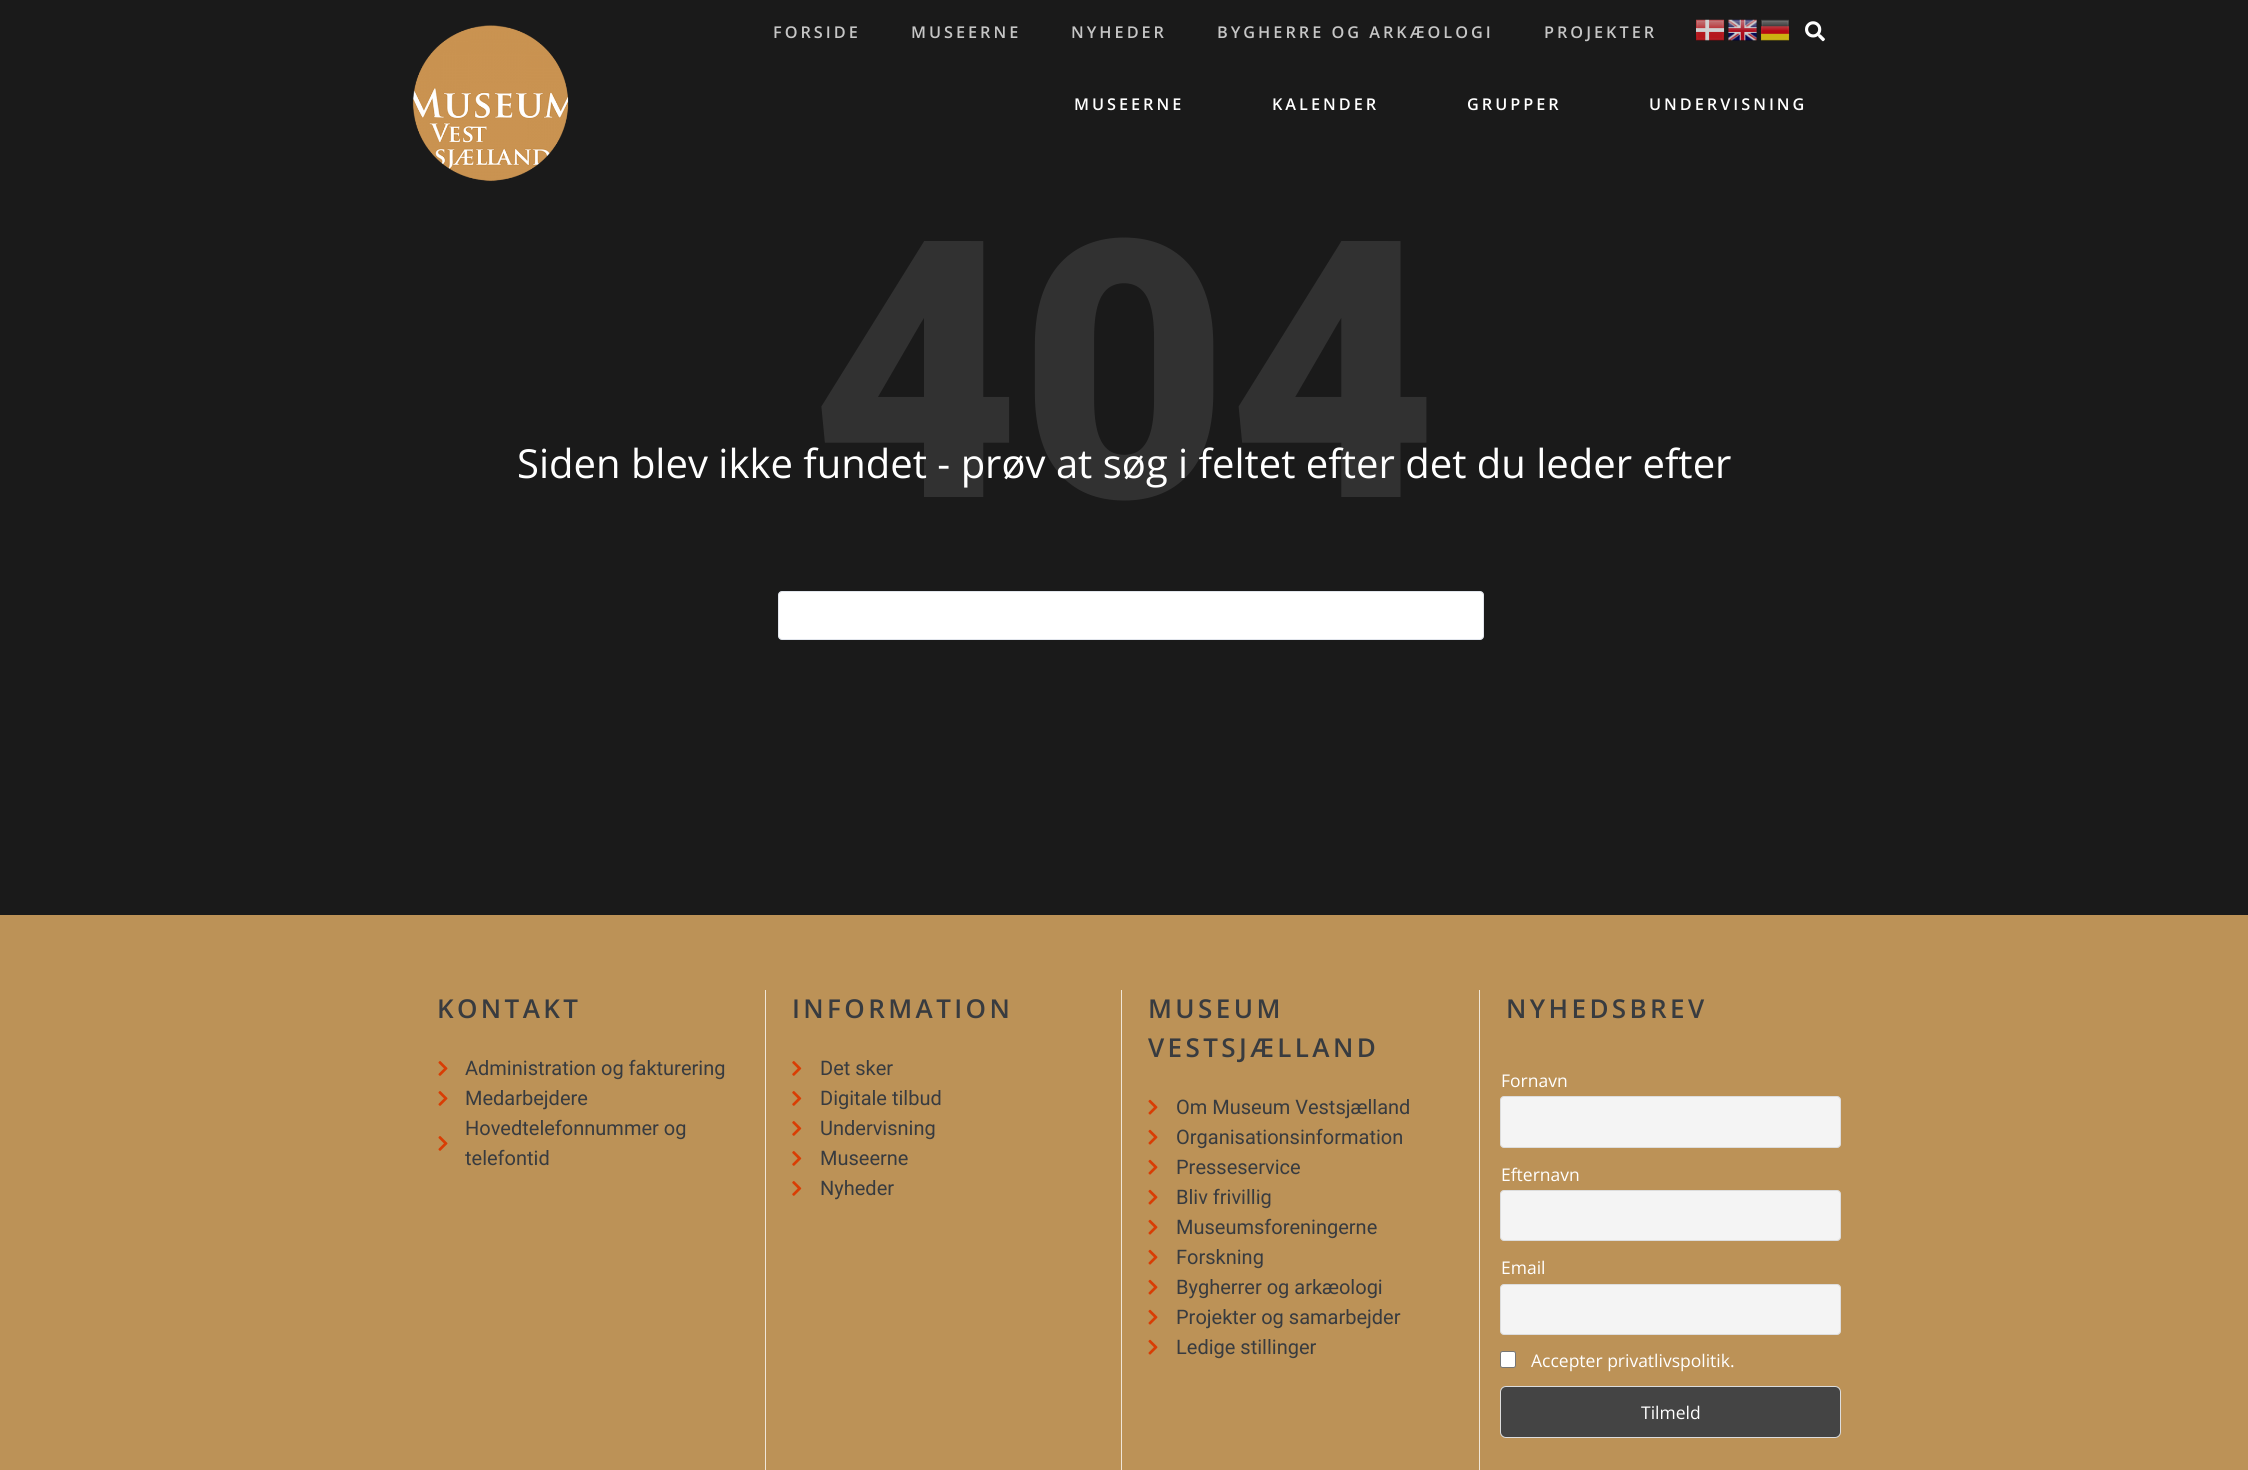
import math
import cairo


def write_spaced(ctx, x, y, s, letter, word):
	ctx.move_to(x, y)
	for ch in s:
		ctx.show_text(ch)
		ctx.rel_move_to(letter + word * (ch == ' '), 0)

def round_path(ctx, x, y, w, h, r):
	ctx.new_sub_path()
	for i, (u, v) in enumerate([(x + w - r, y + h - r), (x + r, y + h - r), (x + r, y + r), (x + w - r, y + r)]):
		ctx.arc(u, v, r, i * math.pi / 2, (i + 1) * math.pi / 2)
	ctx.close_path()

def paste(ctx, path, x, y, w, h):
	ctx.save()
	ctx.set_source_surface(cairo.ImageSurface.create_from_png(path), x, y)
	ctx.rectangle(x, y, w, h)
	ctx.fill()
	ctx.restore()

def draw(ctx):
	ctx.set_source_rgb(0.102, 0.102, 0.102)
	ctx.paint()
	ctx.select_font_face('Open Sans SemiBold')
	ctx.set_font_size(16.25)
	ctx.set_source_rgb(0.776, 0.776, 0.776)
	for x, y, s in [
		(773, 38, 'FORSIDE'),
		(911, 38, 'MUSEERNE'),
		(1071, 38, 'NYHEDER'),
		(1217, 38, 'BYGHERRE OG ARKÆOLOGI'),
		(1544, 38, 'PROJEKTER'),
	]:
		write_spaced(ctx, x, y, s, 3, 0)
	paste(ctx, 'media/1.png', 1696, 19, 29, 22)
	paste(ctx, 'media/2.png', 1728, 19, 29, 22)
	paste(ctx, 'media/3.png', 1761, 19, 29, 22)
	paste(ctx, 'media/4.png', 1805, 21, 20, 21)
	paste(ctx, 'media/5.png', 412, 25, 157, 157)
	ctx.set_source_rgb(1, 1, 1)
	for x, y, s in [
		(1074, 110, 'MUSEERNE'),
		(1272, 110, 'KALENDER'),
		(1467, 110, 'GRUPPER'),
		(1649, 110, 'UNDERVISNING'),
	]:
		write_spaced(ctx, x, y, s, 3, 0)
	ctx.select_font_face('Roboto Black')
	ctx.set_font_size(360)
	ctx.set_source_rgb(0.192, 0.192, 0.192)
	ctx.move_to(811, 497)
	ctx.show_text('404')
	ctx.select_font_face('Open Sans')
	ctx.set_font_size(40)
	ctx.set_source_rgb(1, 1, 1)
	ctx.move_to(517, 478)
	ctx.show_text('Siden blev ikke fundet - prøv at søg i feltet efter det du leder efter')
	round_path(ctx, 778.5, 591.5, 705, 48, 3.5)
	ctx.fill_preserve()
	ctx.set_source_rgb(0.882, 0.898, 0.922)
	ctx.set_line_width(1)
	ctx.stroke()
	ctx.set_source_rgb(0.737, 0.573, 0.341)
	ctx.rectangle(0, 915, 2248, 555)
	ctx.fill()
	ctx.set_source_rgb(0.941, 0.902, 0.847)
	ctx.rectangle(765, 990, 1, 480)
	ctx.fill()
	ctx.select_font_face('Open Sans SemiBold')
	ctx.set_font_size(26)
	ctx.set_source_rgb(0.22, 0.231, 0.247)
	write_spaced(ctx, 437, 1018, 'KONTAKT', 3.4, 0)
	paste(ctx, 'media/6.png', 438, 1061, 10, 15)
	ctx.select_font_face('Roboto')
	ctx.set_font_size(20)
	ctx.move_to(465, 1075)
	ctx.show_text('Administration og fakturering')
	paste(ctx, 'media/6.png', 438, 1091, 10, 15)
	ctx.move_to(465, 1105)
	ctx.show_text('Medarbejdere')
	paste(ctx, 'media/6.png', 438, 1136, 10, 15)
	ctx.move_to(465, 1135)
	ctx.show_text('Hovedtelefonnummer og')
	ctx.move_to(465, 1165)
	ctx.show_text('telefontid')
	ctx.set_source_rgb(0.941, 0.902, 0.847)
	ctx.rectangle(1121, 990, 1, 480)
	ctx.fill()
	ctx.select_font_face('Open Sans SemiBold')
	ctx.set_font_size(26)
	ctx.set_source_rgb(0.22, 0.231, 0.247)
	write_spaced(ctx, 792, 1018, 'INFORMATION', 3.4, 0)
	paste(ctx, 'media/7.png', 792, 1061, 10, 15)
	ctx.select_font_face('Roboto')
	ctx.set_font_size(20)
	ctx.move_to(820, 1075)
	ctx.show_text('Det sker')
	paste(ctx, 'media/7.png', 792, 1091, 10, 15)
	ctx.move_to(820, 1105)
	ctx.show_text('Digitale tilbud')
	paste(ctx, 'media/7.png', 792, 1121, 10, 15)
	ctx.move_to(820, 1135)
	ctx.show_text('Undervisning')
	paste(ctx, 'media/7.png', 792, 1151, 10, 15)
	ctx.move_to(820, 1165)
	ctx.show_text('Museerne')
	paste(ctx, 'media/7.png', 792, 1181, 10, 15)
	ctx.move_to(820, 1195)
	ctx.show_text('Nyheder')
	ctx.set_source_rgb(0.941, 0.902, 0.847)
	ctx.rectangle(1479, 990, 1, 480)
	ctx.fill()
	ctx.select_font_face('Open Sans SemiBold')
	ctx.set_font_size(26)
	ctx.set_source_rgb(0.22, 0.231, 0.247)
	write_spaced(ctx, 1148, 1018, 'MUSEUM', 3.4, 0)
	write_spaced(ctx, 1148, 1057, 'VESTSJÆLLAND', 3.4, 0)
	paste(ctx, 'media/8.png', 1148, 1099, 10, 16)
	ctx.select_font_face('Roboto')
	ctx.set_font_size(20)
	ctx.move_to(1176, 1114)
	ctx.show_text('Om Museum Vestsjælland')
	paste(ctx, 'media/8.png', 1148, 1129, 10, 16)
	ctx.move_to(1176, 1144)
	ctx.show_text('Organisationsinformation')
	paste(ctx, 'media/8.png', 1148, 1159, 10, 16)
	ctx.move_to(1176, 1174)
	ctx.show_text('Presseservice')
	paste(ctx, 'media/8.png', 1148, 1189, 10, 16)
	ctx.move_to(1176, 1204)
	ctx.show_text('Bliv frivillig')
	paste(ctx, 'media/8.png', 1148, 1219, 10, 16)
	ctx.move_to(1176, 1234)
	ctx.show_text('Museumsforeningerne')
	paste(ctx, 'media/8.png', 1148, 1249, 10, 16)
	ctx.move_to(1176, 1264)
	ctx.show_text('Forskning')
	paste(ctx, 'media/8.png', 1148, 1279, 10, 16)
	ctx.move_to(1176, 1294)
	ctx.show_text('Bygherrer og arkæologi')
	paste(ctx, 'media/8.png', 1148, 1309, 10, 16)
	ctx.move_to(1176, 1324)
	ctx.show_text('Projekter og samarbejder')
	paste(ctx, 'media/8.png', 1148, 1339, 10, 16)
	ctx.move_to(1176, 1354)
	ctx.show_text('Ledige stillinger')
	ctx.select_font_face('Open Sans SemiBold')
	ctx.set_font_size(26)
	write_spaced(ctx, 1506, 1018, 'NYHEDSBREV', 3.4, 0)
	ctx.select_font_face('Open Sans')
	ctx.set_font_size(17.5)
	ctx.set_source_rgb(1, 1, 1)
	ctx.move_to(1501, 1087)
	ctx.show_text('Fornavn')
	ctx.set_source_rgb(0.957, 0.957, 0.957)
	round_path(ctx, 1500.5, 1096.5, 340, 51, 3.5)
	ctx.fill_preserve()
	ctx.set_source_rgb(0.867, 0.867, 0.867)
	ctx.stroke()
	ctx.set_source_rgb(1, 1, 1)
	ctx.move_to(1501, 1181)
	ctx.show_text('Efternavn')
	ctx.set_source_rgb(0.957, 0.957, 0.957)
	round_path(ctx, 1500.5, 1190.5, 340, 50, 3.5)
	ctx.fill_preserve()
	ctx.set_source_rgb(0.867, 0.867, 0.867)
	ctx.stroke()
	ctx.set_source_rgb(1, 1, 1)
	ctx.move_to(1501, 1274)
	ctx.show_text('Email')
	ctx.set_source_rgb(0.957, 0.957, 0.957)
	round_path(ctx, 1500.5, 1284.5, 340, 50, 3.5)
	ctx.fill_preserve()
	ctx.set_source_rgb(0.867, 0.867, 0.867)
	ctx.stroke()
	ctx.set_source_rgb(1, 1, 1)
	round_path(ctx, 1500.5, 1351.5, 15, 16, 2)
	ctx.fill_preserve()
	ctx.set_source_rgb(0.463, 0.463, 0.463)
	ctx.stroke()
	ctx.set_source_rgb(1, 1, 1)
	ctx.move_to(1531, 1367)
	ctx.show_text('Accepter privatlivspolitik.')
	ctx.set_source_rgb(0.267, 0.267, 0.267)
	round_path(ctx, 1500.5, 1386.5, 340, 51, 5.5)
	ctx.fill_preserve()
	ctx.set_source_rgb(0.867, 0.867, 0.867)
	ctx.stroke()
	ctx.set_source_rgb(1, 1, 1)
	ctx.move_to(1641, 1419)
	ctx.show_text('Tilmeld')


surface = cairo.ImageSurface(cairo.FORMAT_RGB24, 2248, 1470)
ctx = cairo.Context(surface)
options = cairo.FontOptions()
options.set_hint_metrics(cairo.HINT_METRICS_OFF)
options.set_hint_style(cairo.HINT_STYLE_NONE)
ctx.set_font_options(options)
ctx.set_miter_limit(4)
draw(ctx)
surface.write_to_png('image.png')
